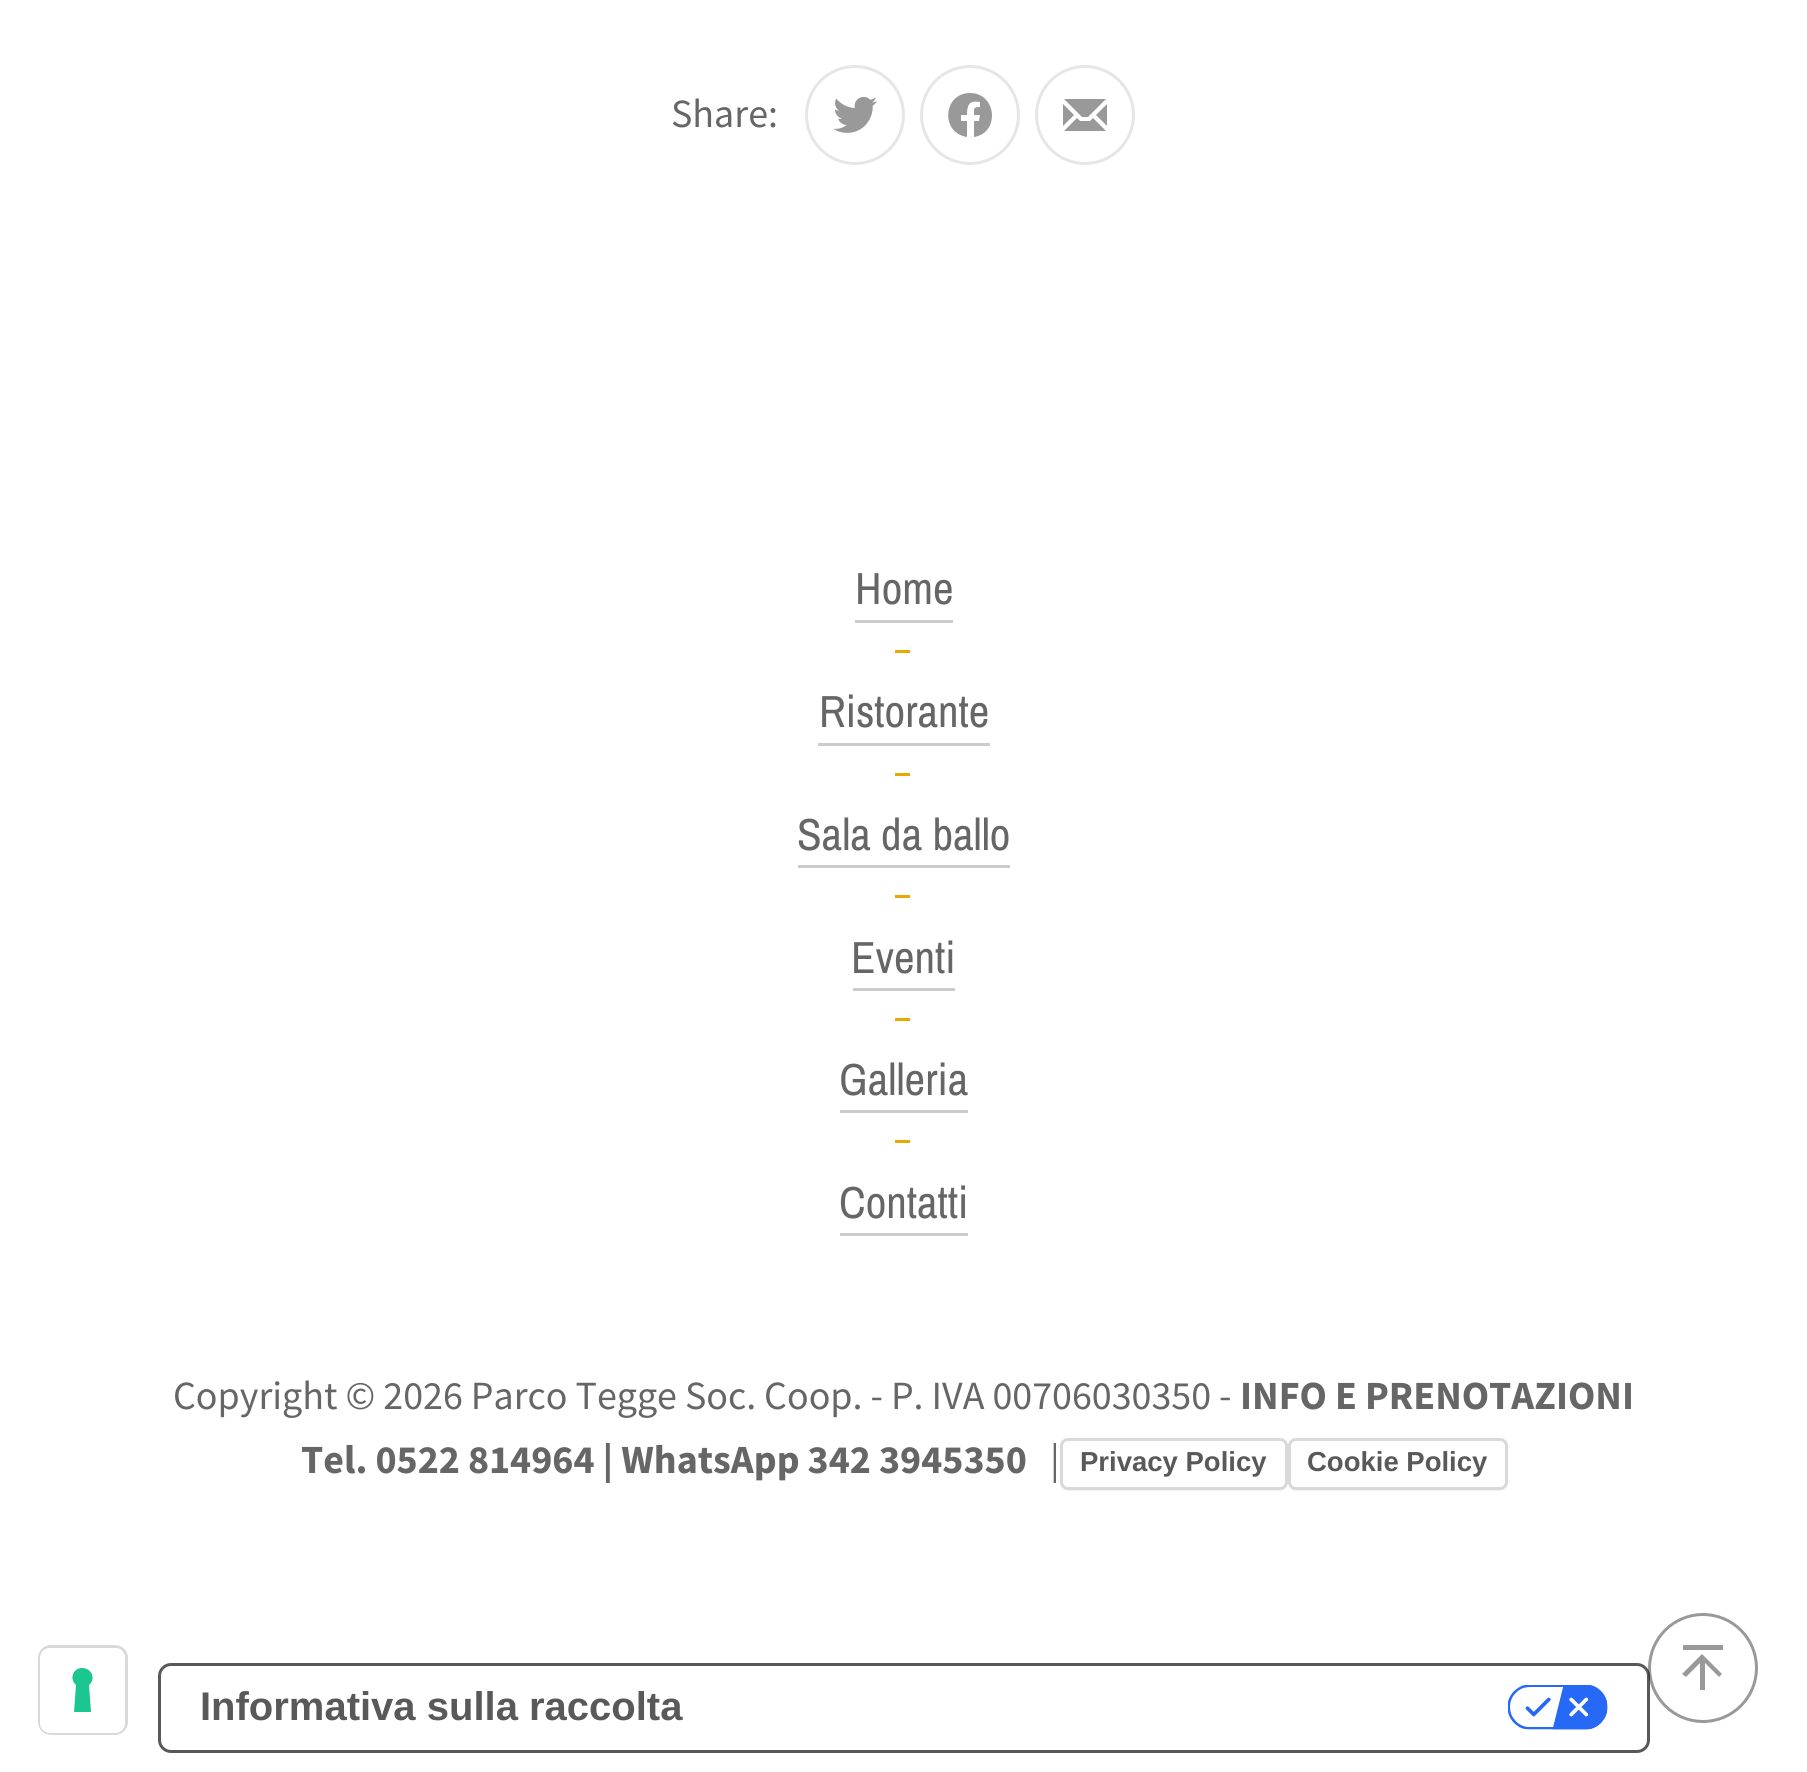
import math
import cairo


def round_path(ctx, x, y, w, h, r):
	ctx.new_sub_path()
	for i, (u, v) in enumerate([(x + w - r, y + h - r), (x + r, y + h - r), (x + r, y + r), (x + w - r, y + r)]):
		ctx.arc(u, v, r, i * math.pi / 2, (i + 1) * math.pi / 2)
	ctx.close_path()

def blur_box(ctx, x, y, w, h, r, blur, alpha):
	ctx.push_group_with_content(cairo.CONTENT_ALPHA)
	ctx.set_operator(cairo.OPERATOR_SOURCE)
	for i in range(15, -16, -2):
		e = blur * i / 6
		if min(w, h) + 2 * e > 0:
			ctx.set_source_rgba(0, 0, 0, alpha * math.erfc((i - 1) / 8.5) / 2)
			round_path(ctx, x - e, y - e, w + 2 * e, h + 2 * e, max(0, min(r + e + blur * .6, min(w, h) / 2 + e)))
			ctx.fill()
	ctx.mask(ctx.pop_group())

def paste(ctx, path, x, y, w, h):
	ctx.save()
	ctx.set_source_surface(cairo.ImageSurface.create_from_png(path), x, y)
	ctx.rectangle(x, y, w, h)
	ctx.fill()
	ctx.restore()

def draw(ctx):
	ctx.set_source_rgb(1, 1, 1)
	ctx.paint()
	ctx.select_font_face('Source Sans Pro')
	ctx.set_font_size(40)
	ctx.set_source_rgb(0.4, 0.4, 0.4)
	ctx.move_to(671, 127)
	ctx.show_text('Share:')
	ctx.new_path()
	ctx.arc(855, 115, 48.5, 0, 2 * math.pi)
	ctx.set_source_rgb(0.902, 0.902, 0.902)
	ctx.set_line_width(3)
	ctx.stroke()
	paste(ctx, 'media/1.png', 833, 96, 44, 37)
	ctx.arc(970, 115, 48.5, 0, 2 * math.pi)
	ctx.stroke()
	ctx.set_source_rgb(0.6, 0.6, 0.6)
	ctx.new_path()
	ctx.move_to(970, 93)
	ctx.curve_to(943, 93, 940, 133, 967, 137)
	ctx.line_to(967, 121)
	ctx.line_to(961, 121)
	ctx.line_to(961, 115)
	ctx.line_to(967, 115)
	ctx.curve_to(967, 105, 969, 100, 980, 102)
	ctx.line_to(980, 107)
	ctx.curve_to(973, 107, 974, 109, 974, 115)
	ctx.line_to(980, 115)
	ctx.line_to(979, 121)
	ctx.line_to(974, 121)
	ctx.line_to(974, 137)
	ctx.curve_to(1000, 133, 997, 93, 970, 93)
	ctx.close_path()
	ctx.fill()
	ctx.arc(1085, 115, 48.5, 0, 2 * math.pi)
	ctx.set_source_rgb(0.902, 0.902, 0.902)
	ctx.stroke()
	ctx.set_source_rgb(0.6, 0.6, 0.6)
	ctx.new_path()
	ctx.move_to(1063, 104)
	ctx.line_to(1063, 126)
	ctx.line_to(1074, 115)
	ctx.close_path()
	ctx.move_to(1096, 115)
	ctx.line_to(1107, 126)
	ctx.line_to(1107, 104)
	ctx.close_path()
	ctx.move_to(1088, 117)
	ctx.line_to(1106, 99)
	ctx.line_to(1064, 99)
	ctx.line_to(1082, 117)
	ctx.close_path()
	ctx.move_to(1090, 121)
	ctx.line_to(1080, 121)
	ctx.line_to(1077, 118)
	ctx.line_to(1064, 131)
	ctx.line_to(1106, 131)
	ctx.line_to(1093, 118)
	ctx.close_path()
	ctx.fill()
	ctx.select_font_face('Archivo Narrow')
	ctx.set_font_size(45)
	ctx.set_source_rgb(0.4, 0.4, 0.4)
	ctx.move_to(855, 604)
	ctx.show_text('Home')
	ctx.set_source_rgb(0.8, 0.8, 0.8)
	ctx.rectangle(855, 620, 98, 3)
	ctx.fill()
	ctx.set_source_rgb(0.914, 0.655, 0)
	ctx.rectangle(895, 650, 15, 3)
	ctx.fill()
	ctx.set_source_rgb(0.4, 0.4, 0.4)
	ctx.move_to(819, 727)
	ctx.show_text('Ristorante')
	ctx.set_source_rgb(0.8, 0.8, 0.8)
	ctx.rectangle(818, 743, 172, 3)
	ctx.fill()
	ctx.set_source_rgb(0.914, 0.655, 0)
	ctx.rectangle(895, 773, 15, 3)
	ctx.fill()
	ctx.set_source_rgb(0.4, 0.4, 0.4)
	ctx.move_to(797, 850)
	ctx.show_text('Sala da ballo')
	ctx.set_source_rgb(0.8, 0.8, 0.8)
	ctx.rectangle(798, 865, 212, 3)
	ctx.fill()
	ctx.set_source_rgb(0.914, 0.655, 0)
	ctx.rectangle(895, 895, 15, 3)
	ctx.fill()
	ctx.set_source_rgb(0.4, 0.4, 0.4)
	ctx.move_to(851, 973)
	ctx.show_text('Eventi')
	ctx.set_source_rgb(0.8, 0.8, 0.8)
	ctx.rectangle(853, 988, 102, 3)
	ctx.fill()
	ctx.set_source_rgb(0.914, 0.655, 0)
	ctx.rectangle(895, 1018, 15, 3)
	ctx.fill()
	ctx.set_source_rgb(0.4, 0.4, 0.4)
	ctx.move_to(839, 1095)
	ctx.show_text('Galleria')
	ctx.set_source_rgb(0.8, 0.8, 0.8)
	ctx.rectangle(840, 1110, 128, 3)
	ctx.fill()
	ctx.set_source_rgb(0.914, 0.655, 0)
	ctx.rectangle(895, 1140, 15, 3)
	ctx.fill()
	ctx.set_source_rgb(0.4, 0.4, 0.4)
	ctx.move_to(839, 1218)
	ctx.show_text('Contatti')
	ctx.set_source_rgb(0.8, 0.8, 0.8)
	ctx.rectangle(840, 1233, 128, 3)
	ctx.fill()
	ctx.select_font_face('Source Sans Pro')
	ctx.set_font_size(40)
	ctx.set_source_rgb(0.4, 0.4, 0.4)
	ctx.move_to(173, 1409)
	ctx.show_text('Copyright © 2026 Parco Tegge Soc. Coop. - P. IVA 00706030350 -')
	ctx.select_font_face('Source Sans Pro', cairo.FONT_SLANT_NORMAL, cairo.FONT_WEIGHT_BOLD)
	ctx.move_to(1240, 1409)
	ctx.show_text('INFO E PRENOTAZIONI')
	ctx.move_to(301, 1473)
	ctx.show_text('Tel. 0522 814964 | WhatsApp 342 3945350')
	ctx.select_font_face('Source Sans Pro')
	ctx.move_to(1050, 1473)
	ctx.show_text('|')
	ctx.set_source_rgb(0, 0, 0)
	blur_box(ctx, 1063, 1443, 222, 47, 5, 1, 0.15)
	ctx.set_source_rgb(1, 1, 1)
	round_path(ctx, 1060, 1438, 228, 52, 8)
	ctx.fill()
	round_path(ctx, 1061.5, 1439.5, 225, 49, 6.5)
	ctx.set_source_rgba(0, 0, 0, 0.15)
	ctx.stroke()
	ctx.select_font_face('Liberation Sans', cairo.FONT_SLANT_NORMAL, cairo.FONT_WEIGHT_BOLD)
	ctx.set_font_size(27.5)
	ctx.set_source_rgb(0.349, 0.349, 0.349)
	ctx.move_to(1080, 1471)
	ctx.show_text('Privacy Policy')
	ctx.set_source_rgb(0, 0, 0)
	blur_box(ctx, 1290, 1443, 215, 47, 5, 1, 0.15)
	ctx.set_source_rgb(1, 1, 1)
	round_path(ctx, 1288, 1438, 220, 52, 8)
	ctx.fill()
	round_path(ctx, 1289.5, 1439.5, 217, 49, 6.5)
	ctx.set_source_rgba(0, 0, 0, 0.15)
	ctx.stroke()
	ctx.set_source_rgb(0.349, 0.349, 0.349)
	ctx.move_to(1307, 1471)
	ctx.show_text('Cookie Policy')
	round_path(ctx, 159.5, 1664.5, 1489, 87, 11.5)
	ctx.stroke()
	ctx.arc(1703, 1668, 53.5, 0, 2 * math.pi)
	ctx.set_source_rgba(0, 0, 0, 0.4)
	ctx.stroke()
	ctx.set_source_rgb(0.6, 0.6, 0.6)
	ctx.rectangle(1683, 1645, 40, 5)
	ctx.fill()
	ctx.new_path()
	ctx.move_to(1682, 1674)
	ctx.line_to(1686, 1677)
	ctx.line_to(1700, 1663)
	ctx.line_to(1700, 1690)
	ctx.line_to(1705, 1690)
	ctx.line_to(1705, 1663)
	ctx.line_to(1719, 1677)
	ctx.line_to(1722, 1674)
	ctx.line_to(1702, 1654)
	ctx.close_path()
	ctx.fill()
	round_path(ctx, 39.5, 1646.5, 87, 87, 11.5)
	ctx.set_source_rgb(0.851, 0.851, 0.851)
	ctx.stroke()
	ctx.set_source_rgb(1, 1, 1)
	round_path(ctx, 40, 1648, 85, 85, 10)
	ctx.fill()
	ctx.set_source_rgb(0.11, 0.776, 0.569)
	ctx.set_fill_rule(cairo.FILL_RULE_EVEN_ODD)
	ctx.new_path()
	ctx.move_to(82, 1668)
	ctx.curve_to(92, 1668, 96, 1679, 89, 1685)
	ctx.line_to(91, 1712)
	ctx.line_to(74, 1712)
	ctx.line_to(76, 1685)
	ctx.curve_to(69, 1679, 73, 1668, 82, 1668)
	ctx.close_path()
	ctx.fill()
	ctx.set_font_size(40)
	ctx.set_source_rgb(0.349, 0.349, 0.349)
	ctx.move_to(200, 1720)
	ctx.show_text('Informativa sulla raccolta')
	paste(ctx, 'media/2.png', 1508, 1685, 100, 45)


surface = cairo.ImageSurface(cairo.FORMAT_RGB24, 1807, 1772)
ctx = cairo.Context(surface)
options = cairo.FontOptions()
options.set_hint_metrics(cairo.HINT_METRICS_OFF)
options.set_hint_style(cairo.HINT_STYLE_NONE)
ctx.set_font_options(options)
ctx.set_miter_limit(4)
draw(ctx)
surface.write_to_png('image.png')
